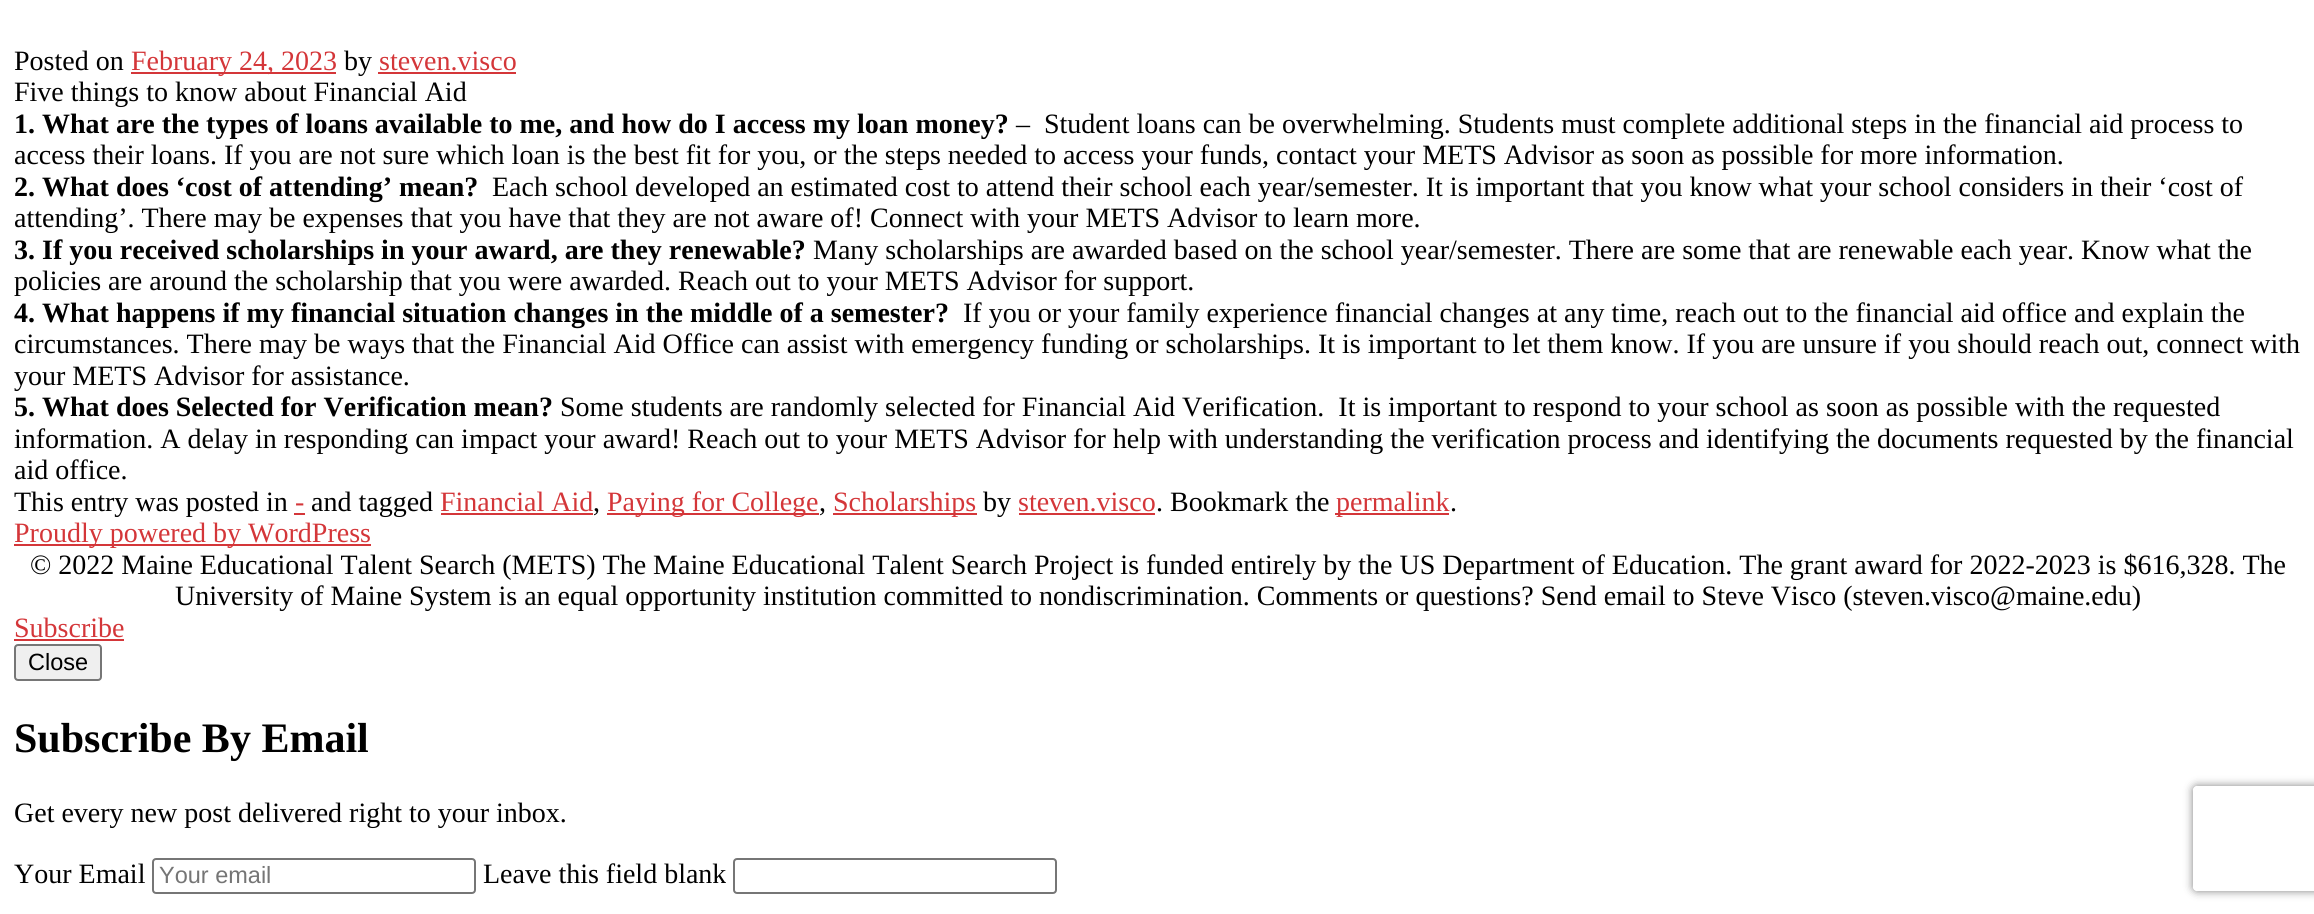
import math
import cairo


def round_path(ctx, x, y, w, h, r):
	ctx.new_sub_path()
	for i, (u, v) in enumerate([(x + w - r, y + h - r), (x + r, y + h - r), (x + r, y + r), (x + w - r, y + r)]):
		ctx.arc(u, v, r, i * math.pi / 2, (i + 1) * math.pi / 2)
	ctx.close_path()

def blur_box(ctx, x, y, w, h, r, blur, alpha):
	ctx.push_group_with_content(cairo.CONTENT_ALPHA)
	ctx.set_operator(cairo.OPERATOR_SOURCE)
	for i in range(15, -16, -2):
		e = blur * i / 6
		if min(w, h) + 2 * e > 0:
			ctx.set_source_rgba(0, 0, 0, alpha * math.erfc((i - 1) / 8.5) / 2)
			round_path(ctx, x - e, y - e, w + 2 * e, h + 2 * e, max(0, min(r + e + blur * .6, min(w, h) / 2 + e)))
			ctx.fill()
	ctx.mask(ctx.pop_group())

def draw(ctx):
	ctx.set_source_rgb(1, 1, 1)
	ctx.paint()
	ctx.select_font_face('Liberation Serif')
	ctx.set_font_size(28)
	ctx.set_source_rgb(0, 0, 0)
	ctx.move_to(14, 70)
	ctx.show_text('Posted on')
	ctx.set_source_rgb(0.831, 0.212, 0.224)
	ctx.rectangle(131, 72, 205, 2)
	ctx.fill()
	ctx.move_to(131, 70)
	ctx.show_text('February 24, 2023')
	ctx.set_source_rgb(0, 0, 0)
	ctx.move_to(344, 70)
	ctx.show_text('by')
	ctx.set_source_rgb(0.831, 0.212, 0.224)
	ctx.move_to(379, 70)
	ctx.show_text('steven.visco')
	ctx.rectangle(378, 72, 138, 2)
	ctx.fill()
	ctx.set_source_rgb(0, 0, 0)
	ctx.move_to(14, 101)
	ctx.show_text('Five things to know about Financial Aid')
	ctx.select_font_face('Liberation Serif', cairo.FONT_SLANT_NORMAL, cairo.FONT_WEIGHT_BOLD)
	ctx.move_to(14, 133)
	ctx.show_text('1. What are the types of loans available to me, and how do I access my loan money?')
	ctx.select_font_face('Liberation Serif')
	ctx.move_to(1016, 133)
	ctx.show_text('–  Student loans can be overwhelming. Students must complete additional steps in the financial aid process to')
	ctx.move_to(14, 164)
	ctx.show_text('access their loans. If you are not sure which loan is the best fit for you, or the steps needed to access your funds, contact your METS Advisor as soon as possible for more information.')
	ctx.select_font_face('Liberation Serif', cairo.FONT_SLANT_NORMAL, cairo.FONT_WEIGHT_BOLD)
	ctx.move_to(14, 196)
	ctx.show_text('2. What does ‘cost of attending’ mean?')
	ctx.select_font_face('Liberation Serif')
	ctx.move_to(492, 196)
	ctx.show_text('Each school developed an estimated cost to attend their school each year/semester. It is important that you know what your school considers in their ‘cost of')
	ctx.move_to(14, 227)
	ctx.show_text('attending’. There may be expenses that you have that they are not aware of! Connect with your METS Advisor to learn more.')
	ctx.select_font_face('Liberation Serif', cairo.FONT_SLANT_NORMAL, cairo.FONT_WEIGHT_BOLD)
	ctx.move_to(14, 259)
	ctx.show_text('3. If you received scholarships in your award, are they renewable?')
	ctx.select_font_face('Liberation Serif')
	ctx.move_to(813, 259)
	ctx.show_text('Many scholarships are awarded based on the school year/semester. There are some that are renewable each year. Know what the')
	ctx.move_to(14, 290)
	ctx.show_text('policies are around the scholarship that you were awarded. Reach out to your METS Advisor for support.')
	ctx.select_font_face('Liberation Serif', cairo.FONT_SLANT_NORMAL, cairo.FONT_WEIGHT_BOLD)
	ctx.move_to(14, 322)
	ctx.show_text('4. What happens if my financial situation changes in the middle of a semester?')
	ctx.select_font_face('Liberation Serif')
	for x, y, s in [
		(963, 322, 'If you or your family experience financial changes at any time, reach out to the financial aid office and explain the'),
		(14, 353, 'circumstances. There may be ways that the Financial Aid Office can assist with emergency funding or scholarships. It is important to let them know. If you are unsure if you should reach out, connect with'),
		(14, 385, 'your METS Advisor for assistance.'),
	]:
		ctx.move_to(x, y)
		ctx.show_text(s)
	ctx.select_font_face('Liberation Serif', cairo.FONT_SLANT_NORMAL, cairo.FONT_WEIGHT_BOLD)
	ctx.move_to(14, 416)
	ctx.show_text('5. What does Selected for Verification mean?')
	ctx.select_font_face('Liberation Serif')
	for x, y, s in [
		(560, 416, 'Some students are randomly selected for Financial Aid Verification.  It is important to respond to your school as soon as possible with the requested'),
		(14, 448, 'information. A delay in responding can impact your award! Reach out to your METS Advisor for help with understanding the verification process and identifying the documents requested by the financial'),
		(14, 479, 'aid office.'),
		(14, 511, 'This entry was posted in'),
	]:
		ctx.move_to(x, y)
		ctx.show_text(s)
	ctx.set_source_rgb(0.831, 0.212, 0.224)
	ctx.move_to(295, 511)
	ctx.show_text('-')
	ctx.rectangle(294, 513, 11, 2)
	ctx.fill()
	ctx.set_source_rgb(0, 0, 0)
	ctx.move_to(311, 511)
	ctx.show_text('and tagged')
	ctx.set_source_rgb(0.831, 0.212, 0.224)
	ctx.move_to(440, 511)
	ctx.show_text('Financial Aid')
	ctx.rectangle(441, 513, 152, 2)
	ctx.fill()
	ctx.rectangle(607, 513, 212, 2)
	ctx.fill()
	ctx.move_to(607, 511)
	ctx.show_text('Paying for College')
	ctx.rectangle(833, 513, 144, 2)
	ctx.fill()
	ctx.move_to(833, 511)
	ctx.show_text('Scholarships')
	ctx.set_source_rgb(0, 0, 0)
	ctx.move_to(983, 511)
	ctx.show_text('by')
	ctx.set_source_rgb(0.831, 0.212, 0.224)
	ctx.move_to(1018, 511)
	ctx.show_text('steven.visco')
	ctx.rectangle(1019, 513, 136, 2)
	ctx.fill()
	ctx.set_source_rgb(0, 0, 0)
	ctx.move_to(1156, 511)
	ctx.show_text('. Bookmark the')
	ctx.set_source_rgb(0.831, 0.212, 0.224)
	ctx.rectangle(1335, 513, 114, 2)
	ctx.fill()
	ctx.move_to(1336, 511)
	ctx.show_text('permalink')
	ctx.set_source_rgb(0, 0, 0)
	for x, y, s in [
		(593, 511, ','),
		(819, 511, ','),
		(1450, 511, '.'),
	]:
		ctx.move_to(x, y)
		ctx.show_text(s)
	ctx.set_source_rgb(0.831, 0.212, 0.224)
	ctx.rectangle(14, 544, 357, 2)
	ctx.fill()
	ctx.move_to(14, 542)
	ctx.show_text('Proudly powered by WordPress')
	ctx.set_source_rgb(0, 0, 0)
	ctx.move_to(30, 574)
	ctx.show_text('© 2022 Maine Educational Talent Search (METS) The Maine Educational Talent Search Project is funded entirely by the US Department of Education. The grant award for 2022-2023 is $616,328. The')
	ctx.move_to(175, 605)
	ctx.show_text('University of Maine System is an equal opportunity institution committed to nondiscrimination. Comments or questions? Send email to Steve Visco (steven.visco@maine.edu)')
	ctx.set_source_rgb(0.831, 0.212, 0.224)
	ctx.move_to(14, 637)
	ctx.show_text('Subscribe')
	ctx.rectangle(14, 639, 110, 2)
	ctx.fill()
	ctx.set_source_rgb(0.937, 0.937, 0.937)
	round_path(ctx, 15, 645, 86, 35, 3)
	ctx.fill_preserve()
	ctx.set_source_rgb(0.463, 0.463, 0.463)
	ctx.stroke()
	ctx.select_font_face('Liberation Sans')
	ctx.set_font_size(23.5)
	ctx.set_source_rgb(0, 0, 0)
	ctx.move_to(28, 670)
	ctx.show_text('Close')
	ctx.select_font_face('Liberation Serif', cairo.FONT_SLANT_NORMAL, cairo.FONT_WEIGHT_BOLD)
	ctx.set_font_size(42)
	ctx.move_to(14, 752)
	ctx.show_text('Subscribe By Email')
	ctx.select_font_face('Liberation Serif')
	ctx.set_font_size(28)
	ctx.move_to(14, 822)
	ctx.show_text('Get every new post delivered right to your inbox.')
	ctx.move_to(14, 883)
	ctx.show_text('Your Email')
	round_path(ctx, 153, 859, 322, 34, 3)
	ctx.set_source_rgb(0.463, 0.463, 0.463)
	ctx.stroke()
	ctx.select_font_face('Liberation Sans')
	ctx.set_font_size(23.5)
	ctx.set_source_rgb(0.459, 0.459, 0.459)
	ctx.move_to(159, 883)
	ctx.show_text('Your email')
	ctx.select_font_face('Liberation Serif')
	ctx.set_font_size(28)
	ctx.set_source_rgb(0, 0, 0)
	ctx.move_to(483, 883)
	ctx.show_text('Leave this field blank')
	round_path(ctx, 734, 859, 322, 34, 3)
	ctx.set_source_rgb(0.463, 0.463, 0.463)
	ctx.stroke()
	ctx.save()
	ctx.set_fill_rule(cairo.FILL_RULE_EVEN_ODD)
	ctx.new_path()
	ctx.move_to(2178, 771)
	ctx.line_to(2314, 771)
	ctx.line_to(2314, 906)
	ctx.line_to(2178, 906)
	ctx.close_path()
	ctx.move_to(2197, 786)
	ctx.line_to(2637, 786)
	ctx.curve_to(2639, 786, 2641, 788, 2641, 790)
	ctx.line_to(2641, 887)
	ctx.curve_to(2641, 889, 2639, 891, 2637, 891)
	ctx.line_to(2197, 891)
	ctx.curve_to(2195, 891, 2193, 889, 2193, 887)
	ctx.line_to(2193, 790)
	ctx.curve_to(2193, 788, 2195, 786, 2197, 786)
	ctx.close_path()
	ctx.clip()
	ctx.set_source_rgb(0.502, 0.502, 0.502)
	blur_box(ctx, 2193, 786, 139, 105, 4, 4.5, 1)
	ctx.restore()


surface = cairo.ImageSurface(cairo.FORMAT_RGB24, 2314, 914)
ctx = cairo.Context(surface)
options = cairo.FontOptions()
options.set_hint_metrics(cairo.HINT_METRICS_OFF)
options.set_hint_style(cairo.HINT_STYLE_NONE)
ctx.set_font_options(options)
ctx.set_miter_limit(4)
draw(ctx)
surface.write_to_png('image.png')
